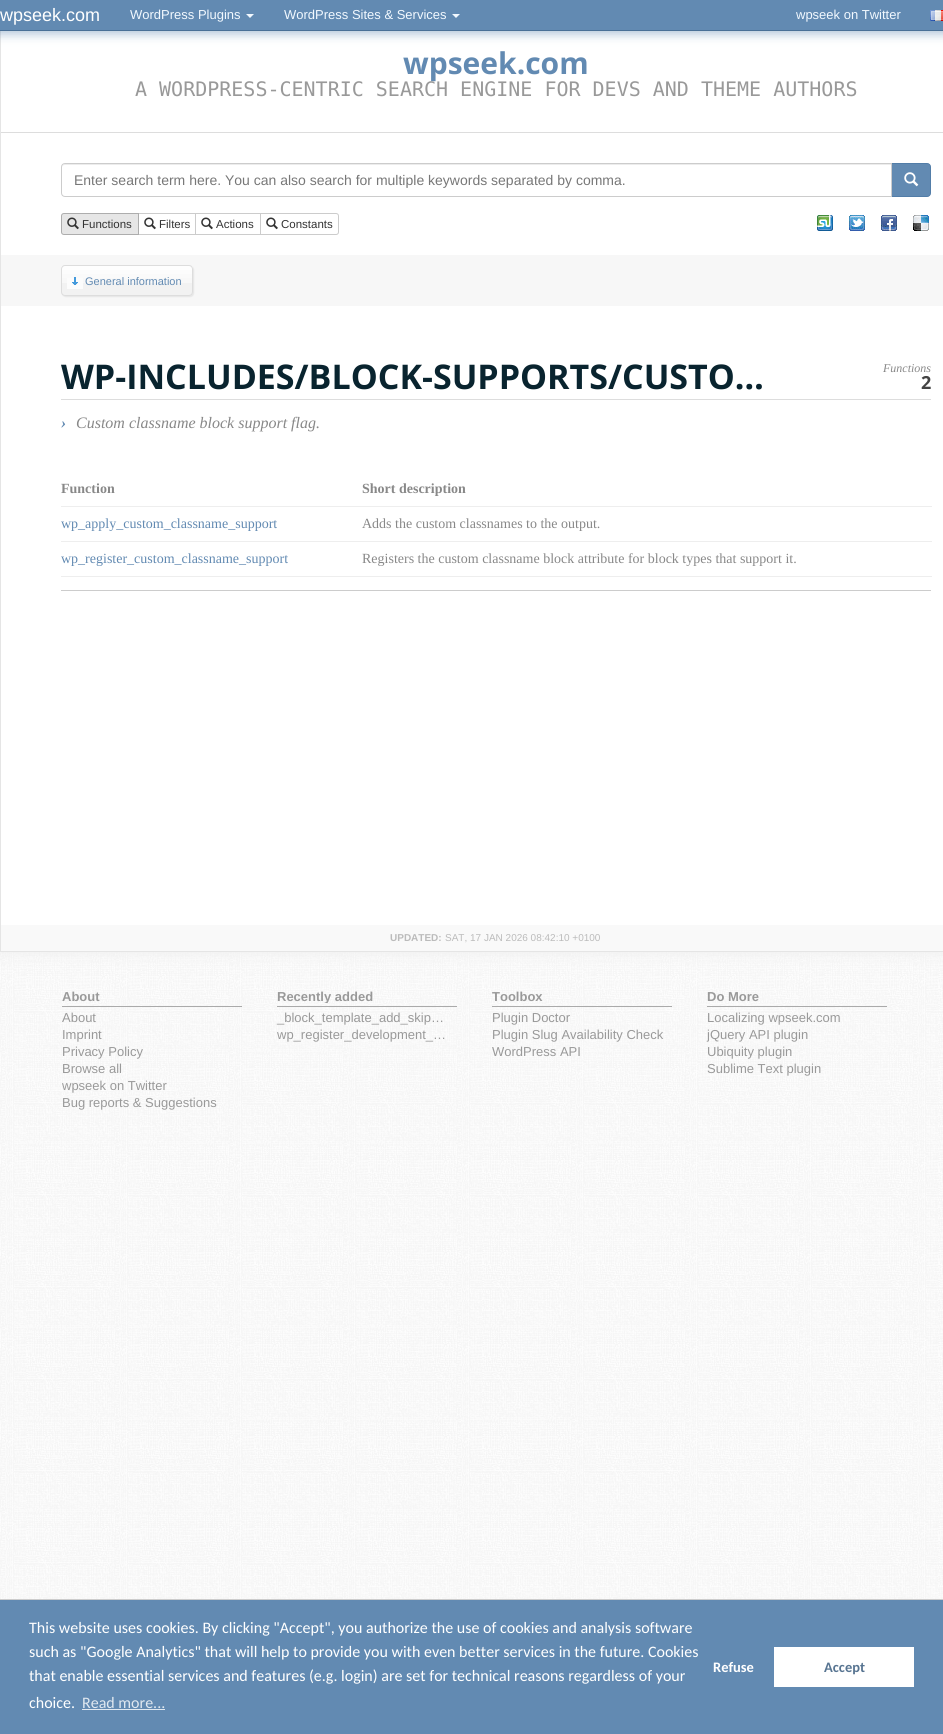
import math
import cairo


def round_path(ctx, x, y, w, h, r):
	ctx.new_sub_path()
	for i, (u, v) in enumerate([(x + w - r, y + h - r), (x + r, y + h - r), (x + r, y + r), (x + w - r, y + r)]):
		ctx.arc(u, v, r, i * math.pi / 2, (i + 1) * math.pi / 2)
	ctx.close_path()

def blur_box(ctx, x, y, w, h, r, blur, alpha):
	ctx.push_group_with_content(cairo.CONTENT_ALPHA)
	ctx.set_operator(cairo.OPERATOR_SOURCE)
	for i in range(15, -16, -2):
		e = blur * i / 6
		if min(w, h) + 2 * e > 0:
			ctx.set_source_rgba(0, 0, 0, alpha * math.erfc((i - 1) / 8.5) / 2)
			round_path(ctx, x - e, y - e, w + 2 * e, h + 2 * e, max(0, min(r + e + blur * .6, min(w, h) / 2 + e)))
			ctx.fill()
	ctx.mask(ctx.pop_group())

def paste(ctx, path, x, y, w, h):
	ctx.save()
	ctx.set_source_surface(cairo.ImageSurface.create_from_png(path), x, y)
	ctx.rectangle(x, y, w, h)
	ctx.fill()
	ctx.restore()

def draw(ctx):
	ctx.set_source_rgb(1, 1, 1)
	ctx.paint()
	paste(ctx, 'media/1.png', 0, 1131, 943, 468)
	paste(ctx, 'media/2.png', 0, 952, 943, 179)
	ctx.set_source_rgb(0.933, 0.933, 0.933)
	blur_box(ctx, 0, 0, 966, 952, 0, 7.5, 1)
	ctx.set_source_rgb(1, 1, 1)
	ctx.rectangle(1, 31, 942, 894)
	ctx.fill()
	ctx.set_source_rgb(0.898, 0.898, 0.898)
	ctx.rectangle(0, 951, 943, 1)
	ctx.rectangle(0, 31, 1, 921)
	ctx.fill()
	ctx.set_source_rgb(0.384, 0.541, 0.698)
	blur_box(ctx, -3, -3, 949, 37, 0, 5, 0.5)
	ctx.set_source_rgb(0.384, 0.541, 0.698)
	ctx.rectangle(0, 0, 943, 30)
	ctx.fill()
	ctx.set_source_rgb(0.29, 0.439, 0.592)
	ctx.rectangle(0, 30, 943, 1)
	ctx.fill()
	ctx.select_font_face('Liberation Sans')
	ctx.set_font_size(18)
	ctx.set_source_rgb(1, 1, 1)
	ctx.move_to(0, 21)
	ctx.show_text('wpseek.com')
	ctx.set_font_size(13)
	ctx.set_source_rgb(0.949, 0.973, 1)
	ctx.move_to(130, 19)
	ctx.show_text('WordPress Plugins')
	ctx.new_path()
	ctx.move_to(246, 14)
	ctx.line_to(254, 14)
	ctx.line_to(250, 18)
	ctx.close_path()
	ctx.fill()
	ctx.move_to(284, 19)
	ctx.show_text('WordPress Sites & Services')
	ctx.new_path()
	ctx.move_to(452, 14)
	ctx.line_to(460, 14)
	ctx.line_to(456, 18)
	ctx.close_path()
	ctx.fill()
	ctx.move_to(796, 19)
	ctx.show_text('wpseek on Twitter')
	paste(ctx, 'media/3.png', 930, 10, 13, 11)
	ctx.set_source_rgb(0.867, 0.867, 0.867)
	ctx.rectangle(1, 132, 942, 1)
	ctx.fill()
	ctx.select_font_face('Open Sans', cairo.FONT_SLANT_NORMAL, cairo.FONT_WEIGHT_BOLD)
	ctx.set_font_size(30)
	ctx.set_source_rgb(0.384, 0.541, 0.698)
	ctx.move_to(403, 74)
	ctx.show_text('wpseek.com')
	ctx.select_font_face('DejaVu Sans Mono')
	ctx.set_font_size(20)
	ctx.set_source_rgb(0.6, 0.6, 0.6)
	ctx.move_to(135, 96)
	ctx.show_text('A WORDPRESS-CENTRIC SEARCH ENGINE FOR DEVS AND THEME AUTHORS')
	ctx.set_source_rgb(0.384, 0.541, 0.698)
	ctx.new_path()
	ctx.move_to(891.5, 163.5)
	ctx.line_to(927, 163.5)
	ctx.curve_to(929, 163.5, 930.5, 165, 930.5, 167)
	ctx.line_to(930.5, 193)
	ctx.curve_to(930.5, 195, 929, 196.5, 927, 196.5)
	ctx.line_to(891.5, 196.5)
	ctx.close_path()
	ctx.fill_preserve()
	ctx.set_source_rgb(0.322, 0.49, 0.659)
	ctx.set_line_width(1)
	ctx.stroke()
	ctx.set_source_rgb(1, 1, 1)
	ctx.new_path()
	ctx.move_to(65, 163)
	ctx.line_to(892, 163)
	ctx.line_to(892, 197)
	ctx.line_to(65, 197)
	ctx.curve_to(63, 197, 61, 195, 61, 193)
	ctx.line_to(61, 167)
	ctx.curve_to(61, 165, 63, 163, 65, 163)
	ctx.close_path()
	ctx.fill()
	ctx.set_source_rgb(0.925, 0.925, 0.925)
	ctx.new_path()
	ctx.move_to(65, 165)
	ctx.line_to(891, 165)
	ctx.line_to(891, 164)
	ctx.line_to(65, 164)
	ctx.curve_to(63, 164, 62, 166, 62, 168)
	ctx.curve_to(62, 166, 63, 165, 65, 165)
	ctx.close_path()
	ctx.fill()
	ctx.new_path()
	ctx.move_to(65, 163.5)
	ctx.line_to(891.5, 163.5)
	ctx.line_to(891.5, 196.5)
	ctx.line_to(65, 196.5)
	ctx.curve_to(63, 196.5, 61.5, 195, 61.5, 193)
	ctx.line_to(61.5, 167)
	ctx.curve_to(61.5, 165, 63, 163.5, 65, 163.5)
	ctx.close_path()
	ctx.set_source_rgb(0.8, 0.8, 0.8)
	ctx.stroke()
	ctx.select_font_face('Liberation Sans')
	ctx.set_font_size(14)
	ctx.set_source_rgb(0.467, 0.467, 0.467)
	ctx.move_to(74, 185)
	ctx.show_text('Enter search term here. You can also search for multiple keywords separated by comma.')
	paste(ctx, 'media/4.png', 904, 172, 15, 15)
	ctx.rectangle(138.5, 213.5, 57, 21)
	ctx.set_source_rgb(0.8, 0.8, 0.8)
	ctx.stroke()
	ctx.set_source_rgb(0.902, 0.902, 0.902)
	ctx.new_path()
	ctx.move_to(64, 213.5)
	ctx.line_to(138.5, 213.5)
	ctx.line_to(138.5, 234.5)
	ctx.line_to(64, 234.5)
	ctx.curve_to(62.5, 234.5, 61.5, 233.5, 61.5, 232)
	ctx.line_to(61.5, 216)
	ctx.curve_to(61.5, 214.5, 62.5, 213.5, 64, 213.5)
	ctx.close_path()
	ctx.fill_preserve()
	ctx.set_source_rgb(0.678, 0.678, 0.678)
	ctx.stroke()
	paste(ctx, 'media/5.png', 67, 217, 12, 13)
	ctx.set_font_size(11.5)
	ctx.set_source_rgb(0.2, 0.2, 0.2)
	ctx.move_to(82, 228)
	ctx.show_text('Functions')
	paste(ctx, 'media/6.png', 144, 217, 12, 13)
	ctx.move_to(159, 228)
	ctx.show_text('Filters')
	ctx.rectangle(195.5, 213.5, 65, 21)
	ctx.set_source_rgb(0.8, 0.8, 0.8)
	ctx.stroke()
	paste(ctx, 'media/6.png', 201, 217, 12, 13)
	ctx.set_source_rgb(0.2, 0.2, 0.2)
	ctx.move_to(216, 228)
	ctx.show_text('Actions')
	ctx.set_source_rgb(1, 1, 1)
	ctx.new_path()
	ctx.move_to(260.5, 213.5)
	ctx.line_to(336, 213.5)
	ctx.curve_to(337.5, 213.5, 338.5, 214.5, 338.5, 216)
	ctx.line_to(338.5, 232)
	ctx.curve_to(338.5, 233.5, 337.5, 234.5, 336, 234.5)
	ctx.line_to(260.5, 234.5)
	ctx.close_path()
	ctx.fill_preserve()
	ctx.set_source_rgb(0.8, 0.8, 0.8)
	ctx.stroke()
	paste(ctx, 'media/6.png', 266, 217, 12, 13)
	ctx.set_source_rgb(0.2, 0.2, 0.2)
	ctx.move_to(281, 228)
	ctx.show_text('Constants')
	paste(ctx, 'media/7.png', 817, 215, 16, 16)
	paste(ctx, 'media/8.png', 849, 215, 16, 16)
	paste(ctx, 'media/9.png', 881, 215, 16, 16)
	paste(ctx, 'media/10.png', 913, 215, 16, 16)
	ctx.set_source_rgb(0.965, 0.965, 0.965)
	ctx.rectangle(1, 255, 942, 51)
	ctx.fill()
	ctx.set_source_rgb(0.902, 0.902, 0.902)
	blur_box(ctx, 62, 266, 132, 31, 4, 0.5, 1)
	ctx.set_source_rgb(0.949, 0.949, 0.949)
	round_path(ctx, 61, 265, 132, 31, 4)
	ctx.fill()
	paste(ctx, 'media/11.png', 61, 266, 132, 17)
	round_path(ctx, 61.5, 265.5, 131, 30, 3.5)
	ctx.set_source_rgb(0.867, 0.867, 0.867)
	ctx.stroke()
	ctx.set_source_rgb(0.988, 0.988, 0.988)
	ctx.rectangle(67, 278, 16, 11)
	ctx.fill()
	paste(ctx, 'media/12.png', 72, 277, 6, 8)
	ctx.set_font_size(11)
	ctx.set_source_rgb(0.384, 0.541, 0.698)
	ctx.move_to(85, 285)
	ctx.show_text('General information')
	ctx.select_font_face('Open Sans', cairo.FONT_SLANT_NORMAL, cairo.FONT_WEIGHT_BOLD)
	ctx.set_font_size(34)
	ctx.set_source_rgb(0.039, 0.141, 0.184)
	ctx.move_to(61, 389)
	ctx.show_text('WP-INCLUDES/BLOCK-SUPPORTS/CUSTO…')
	ctx.select_font_face('Liberation Serif', cairo.FONT_SLANT_ITALIC)
	ctx.set_font_size(12)
	ctx.set_source_rgb(0.533, 0.533, 0.533)
	ctx.move_to(883, 372)
	ctx.show_text('Functions')
	ctx.select_font_face('Open Sans', cairo.FONT_SLANT_NORMAL, cairo.FONT_WEIGHT_BOLD)
	ctx.set_font_size(18)
	ctx.set_source_rgb(0.267, 0.267, 0.267)
	ctx.move_to(921, 389)
	ctx.show_text('2')
	ctx.set_source_rgb(0.867, 0.867, 0.867)
	ctx.rectangle(61, 399, 870, 1)
	ctx.fill()
	ctx.select_font_face('Liberation Serif', cairo.FONT_SLANT_ITALIC, cairo.FONT_WEIGHT_BOLD)
	ctx.set_font_size(16)
	ctx.set_source_rgb(0.384, 0.541, 0.698)
	ctx.move_to(61, 428)
	ctx.show_text('›')
	ctx.select_font_face('Liberation Serif', cairo.FONT_SLANT_ITALIC)
	ctx.set_source_rgb(0.533, 0.533, 0.533)
	ctx.move_to(76, 428)
	ctx.show_text('Custom classname block support flag.')
	ctx.select_font_face('Liberation Serif', cairo.FONT_SLANT_NORMAL, cairo.FONT_WEIGHT_BOLD)
	ctx.set_font_size(14)
	ctx.move_to(61, 493)
	ctx.show_text('Function')
	ctx.set_source_rgb(0.933, 0.933, 0.933)
	ctx.rectangle(61, 506, 871, 1)
	ctx.fill()
	ctx.set_source_rgb(0.533, 0.533, 0.533)
	ctx.move_to(362, 493)
	ctx.show_text('Short description')
	ctx.select_font_face('Liberation Serif')
	ctx.set_source_rgb(0.384, 0.541, 0.698)
	ctx.move_to(61, 528)
	ctx.show_text('wp_apply_custom_classname_support')
	ctx.set_source_rgb(0.933, 0.933, 0.933)
	ctx.rectangle(61, 541, 871, 1)
	ctx.fill()
	ctx.set_source_rgb(0.533, 0.533, 0.533)
	ctx.move_to(362, 528)
	ctx.show_text('Adds the custom classnames to the output.')
	ctx.set_source_rgb(0.384, 0.541, 0.698)
	ctx.move_to(61, 563)
	ctx.show_text('wp_register_custom_classname_support')
	ctx.set_source_rgb(0.933, 0.933, 0.933)
	ctx.rectangle(61, 576, 871, 1)
	ctx.fill()
	ctx.set_source_rgb(0.533, 0.533, 0.533)
	ctx.move_to(362, 563)
	ctx.show_text('Registers the custom classname block attribute for block types that support it.')
	ctx.set_source_rgb(0.8, 0.8, 0.8)
	ctx.rectangle(61, 590, 870, 1)
	ctx.fill()
	ctx.set_source_rgb(0.976, 0.976, 0.976)
	ctx.rectangle(1, 925, 942, 26)
	ctx.fill()
	ctx.select_font_face('Liberation Sans', cairo.FONT_SLANT_NORMAL, cairo.FONT_WEIGHT_BOLD)
	ctx.set_font_size(10)
	ctx.set_source_rgb(0.733, 0.733, 0.733)
	ctx.move_to(390, 941)
	ctx.show_text('UPDATED:')
	ctx.select_font_face('Liberation Sans')
	ctx.move_to(445, 941)
	ctx.show_text('SAT, 17 JAN 2026 08:42:10 +0100')
	ctx.set_source_rgb(0.667, 0.667, 0.667)
	ctx.rectangle(62, 1006, 180, 1)
	ctx.fill()
	ctx.select_font_face('Liberation Sans', cairo.FONT_SLANT_NORMAL, cairo.FONT_WEIGHT_BOLD)
	ctx.set_font_size(13)
	ctx.set_source_rgb(0.6, 0.6, 0.6)
	ctx.move_to(62, 1001)
	ctx.show_text('About')
	ctx.select_font_face('Liberation Sans')
	for x, y, s in [
		(62, 1022, 'About'),
		(62, 1039, 'Imprint'),
		(62, 1056, 'Privacy Policy'),
		(62, 1073, 'Browse all'),
		(62, 1090, 'wpseek on Twitter'),
		(62, 1107, 'Bug reports & Suggestions'),
	]:
		ctx.move_to(x, y)
		ctx.show_text(s)
	ctx.set_source_rgb(0.667, 0.667, 0.667)
	ctx.rectangle(277, 1006, 180, 1)
	ctx.fill()
	ctx.save()
	ctx.rectangle(277, 990, 172, 13)
	ctx.clip()
	ctx.select_font_face('Liberation Sans', cairo.FONT_SLANT_NORMAL, cairo.FONT_WEIGHT_BOLD)
	ctx.set_source_rgb(0.6, 0.6, 0.6)
	ctx.move_to(277, 1001)
	ctx.show_text('Recently added')
	ctx.restore()
	ctx.set_source_rgb(0.6, 0.6, 0.6)
	ctx.move_to(277, 1022)
	ctx.show_text('_block_template_add_skip…')
	ctx.move_to(277, 1039)
	ctx.show_text('wp_register_development_…')
	ctx.set_source_rgb(0.667, 0.667, 0.667)
	ctx.rectangle(492, 1006, 180, 1)
	ctx.fill()
	ctx.select_font_face('Liberation Sans', cairo.FONT_SLANT_NORMAL, cairo.FONT_WEIGHT_BOLD)
	ctx.set_source_rgb(0.6, 0.6, 0.6)
	ctx.move_to(492, 1001)
	ctx.show_text('Toolbox')
	ctx.select_font_face('Liberation Sans')
	for x, y, s in [
		(492, 1022, 'Plugin Doctor'),
		(492, 1039, 'Plugin Slug Availability Check'),
		(492, 1056, 'WordPress API'),
	]:
		ctx.move_to(x, y)
		ctx.show_text(s)
	ctx.set_source_rgb(0.667, 0.667, 0.667)
	ctx.rectangle(707, 1006, 180, 1)
	ctx.fill()
	ctx.select_font_face('Liberation Sans', cairo.FONT_SLANT_NORMAL, cairo.FONT_WEIGHT_BOLD)
	ctx.set_source_rgb(0.6, 0.6, 0.6)
	ctx.move_to(707, 1001)
	ctx.show_text('Do More')
	ctx.select_font_face('Liberation Sans')
	for x, y, s in [
		(707, 1022, 'Localizing wpseek.com'),
		(707, 1039, 'jQuery API plugin'),
		(707, 1056, 'Ubiquity plugin'),
		(707, 1073, 'Sublime Text plugin'),
	]:
		ctx.move_to(x, y)
		ctx.show_text(s)
	ctx.set_source_rgb(0.384, 0.541, 0.698)
	ctx.rectangle(0, 1600, 943, 134)
	ctx.fill()
	ctx.set_source_rgb(0.8, 0.8, 0.8)
	ctx.rectangle(0, 1599, 943, 1)
	ctx.fill()
	ctx.select_font_face('Carlito')
	ctx.set_font_size(16)
	ctx.set_source_rgb(1, 1, 1)
	for x, y, s in [
		(29, 1633, 'This website uses cookies. By clicking "Accept", you authorize the use of cookies and analysis software'),
		(29, 1657, 'such as "Google Analytics" that will help to provide you with even better services in the future. Cookies'),
		(29, 1681, 'that enable essential services and features (e.g. login) are set for technical reasons regardless of your'),
		(29, 1708, 'choice.'),
	]:
		ctx.move_to(x, y)
		ctx.show_text(s)
	ctx.set_source_rgb(0.878, 0.91, 0.941)
	ctx.move_to(82, 1708)
	ctx.show_text('Read more...')
	ctx.rectangle(82, 1709, 83, 1)
	ctx.fill()
	ctx.select_font_face('Carlito', cairo.FONT_SLANT_NORMAL, cairo.FONT_WEIGHT_BOLD)
	ctx.set_font_size(14.5)
	ctx.set_source_rgb(1, 1, 1)
	ctx.move_to(713, 1672)
	ctx.show_text('Refuse')
	ctx.rectangle(774, 1647, 140, 40)
	ctx.fill()
	ctx.set_source_rgb(0.341, 0.455, 0.569)
	ctx.move_to(824, 1672)
	ctx.show_text('Accept')


surface = cairo.ImageSurface(cairo.FORMAT_RGB24, 943, 1734)
ctx = cairo.Context(surface)
options = cairo.FontOptions()
options.set_hint_metrics(cairo.HINT_METRICS_OFF)
options.set_hint_style(cairo.HINT_STYLE_NONE)
ctx.set_font_options(options)
ctx.set_miter_limit(4)
draw(ctx)
surface.write_to_png('image.png')
